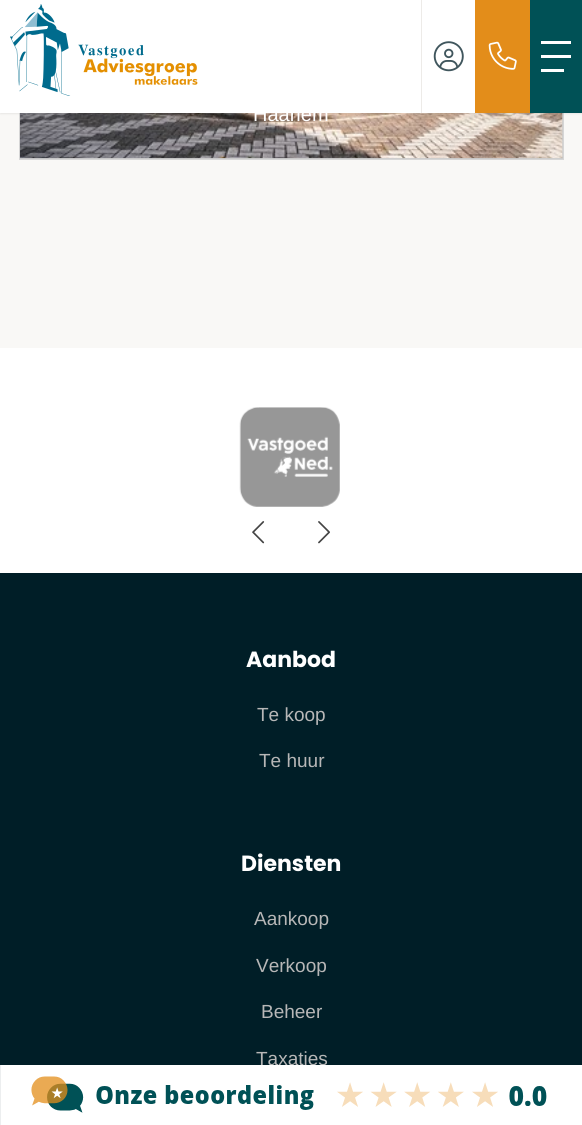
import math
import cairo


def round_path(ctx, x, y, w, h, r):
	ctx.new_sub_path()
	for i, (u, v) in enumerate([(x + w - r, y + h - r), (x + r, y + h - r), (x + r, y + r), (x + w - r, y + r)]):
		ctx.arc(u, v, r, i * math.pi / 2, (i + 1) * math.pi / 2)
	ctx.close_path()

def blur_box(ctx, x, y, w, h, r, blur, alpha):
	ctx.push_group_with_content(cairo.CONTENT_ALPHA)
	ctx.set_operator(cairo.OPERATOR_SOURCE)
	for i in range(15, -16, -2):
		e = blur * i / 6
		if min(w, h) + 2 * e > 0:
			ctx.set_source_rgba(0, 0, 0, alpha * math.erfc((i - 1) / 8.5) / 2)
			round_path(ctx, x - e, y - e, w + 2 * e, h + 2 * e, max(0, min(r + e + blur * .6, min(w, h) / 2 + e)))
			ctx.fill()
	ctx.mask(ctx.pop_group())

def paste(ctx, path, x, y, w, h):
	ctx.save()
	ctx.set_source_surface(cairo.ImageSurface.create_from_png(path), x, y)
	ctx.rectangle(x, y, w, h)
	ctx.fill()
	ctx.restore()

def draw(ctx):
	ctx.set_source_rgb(0.976, 0.969, 0.961)
	ctx.paint()
	ctx.rectangle(19.5, -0.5, 544, 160)
	ctx.set_source_rgb(0.839, 0.839, 0.839)
	ctx.set_line_width(1)
	ctx.stroke()
	ctx.set_source_rgb(0.8, 0.8, 0.8)
	ctx.rectangle(20, 113, 543, 46)
	ctx.fill()
	paste(ctx, 'media/4.png', 20, 113, 543, 46)
	ctx.set_source_rgb(0, 0, 0)
	blur_box(ctx, 0, 1, 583, 113, 0, 1, 0.07)
	ctx.set_source_rgb(1, 1, 1)
	ctx.rectangle(0, 0, 475, 113)
	ctx.fill()
	paste(ctx, 'media/1.png', 10, 4, 188, 92)
	ctx.set_source_rgb(0.929, 0.918, 0.91)
	ctx.rectangle(421, 0, 1, 113)
	ctx.fill()
	paste(ctx, 'media/2.png', 433, 41, 31, 31)
	ctx.set_source_rgb(0.89, 0.553, 0.102)
	ctx.rectangle(475, 0, 55, 113)
	ctx.fill()
	paste(ctx, 'media/3.png', 488, 41, 29, 29)
	ctx.set_source_rgb(0, 0.318, 0.337)
	ctx.rectangle(530, 0, 52, 113)
	ctx.fill()
	ctx.set_source_rgb(1, 1, 1)
	ctx.rectangle(541, 41, 30, 3)
	ctx.rectangle(541, 55, 30, 3)
	ctx.rectangle(541, 69, 23, 3)
	ctx.fill()
	ctx.select_font_face('Liberation Sans')
	ctx.set_font_size(20)
	ctx.move_to(253, 121)
	ctx.show_text('Haarlem')
	ctx.rectangle(0, 348, 582, 225)
	ctx.fill()
	paste(ctx, 'media/5.png', 239, 407, 101, 100)
	paste(ctx, 'media/6.png', 252, 521, 13, 23)
	paste(ctx, 'media/7.png', 318, 521, 12, 23)
	ctx.set_source_rgb(0, 0.118, 0.153)
	ctx.rectangle(0, 573, 582, 552)
	ctx.fill()
	ctx.select_font_face('Poppins', cairo.FONT_SLANT_NORMAL, cairo.FONT_WEIGHT_BOLD)
	ctx.set_font_size(22)
	ctx.set_source_rgb(1, 1, 1)
	ctx.move_to(246, 667)
	ctx.show_text('Aanbod')
	ctx.select_font_face('Liberation Sans')
	ctx.set_font_size(19)
	ctx.set_source_rgb(0.718, 0.718, 0.718)
	ctx.move_to(257, 721)
	ctx.show_text('Te koop')
	ctx.move_to(259, 767)
	ctx.show_text('Te huur')
	ctx.select_font_face('Poppins', cairo.FONT_SLANT_NORMAL, cairo.FONT_WEIGHT_BOLD)
	ctx.set_font_size(22)
	ctx.set_source_rgb(1, 1, 1)
	ctx.move_to(241, 871)
	ctx.show_text('Diensten')
	ctx.select_font_face('Liberation Sans')
	ctx.set_font_size(19)
	ctx.set_source_rgb(0.718, 0.718, 0.718)
	for x, y, s in [
		(254, 925, 'Aankoop'),
		(256, 972, 'Verkoop'),
		(261, 1018, 'Beheer'),
		(256, 1065, 'Taxaties'),
	]:
		ctx.move_to(x, y)
		ctx.show_text(s)
	paste(ctx, 'media/8.png', 0, 1065, 582, 60)


surface = cairo.ImageSurface(cairo.FORMAT_RGB24, 582, 1125)
ctx = cairo.Context(surface)
options = cairo.FontOptions()
options.set_hint_metrics(cairo.HINT_METRICS_OFF)
options.set_hint_style(cairo.HINT_STYLE_NONE)
ctx.set_font_options(options)
ctx.set_miter_limit(4)
draw(ctx)
surface.write_to_png('image.png')
